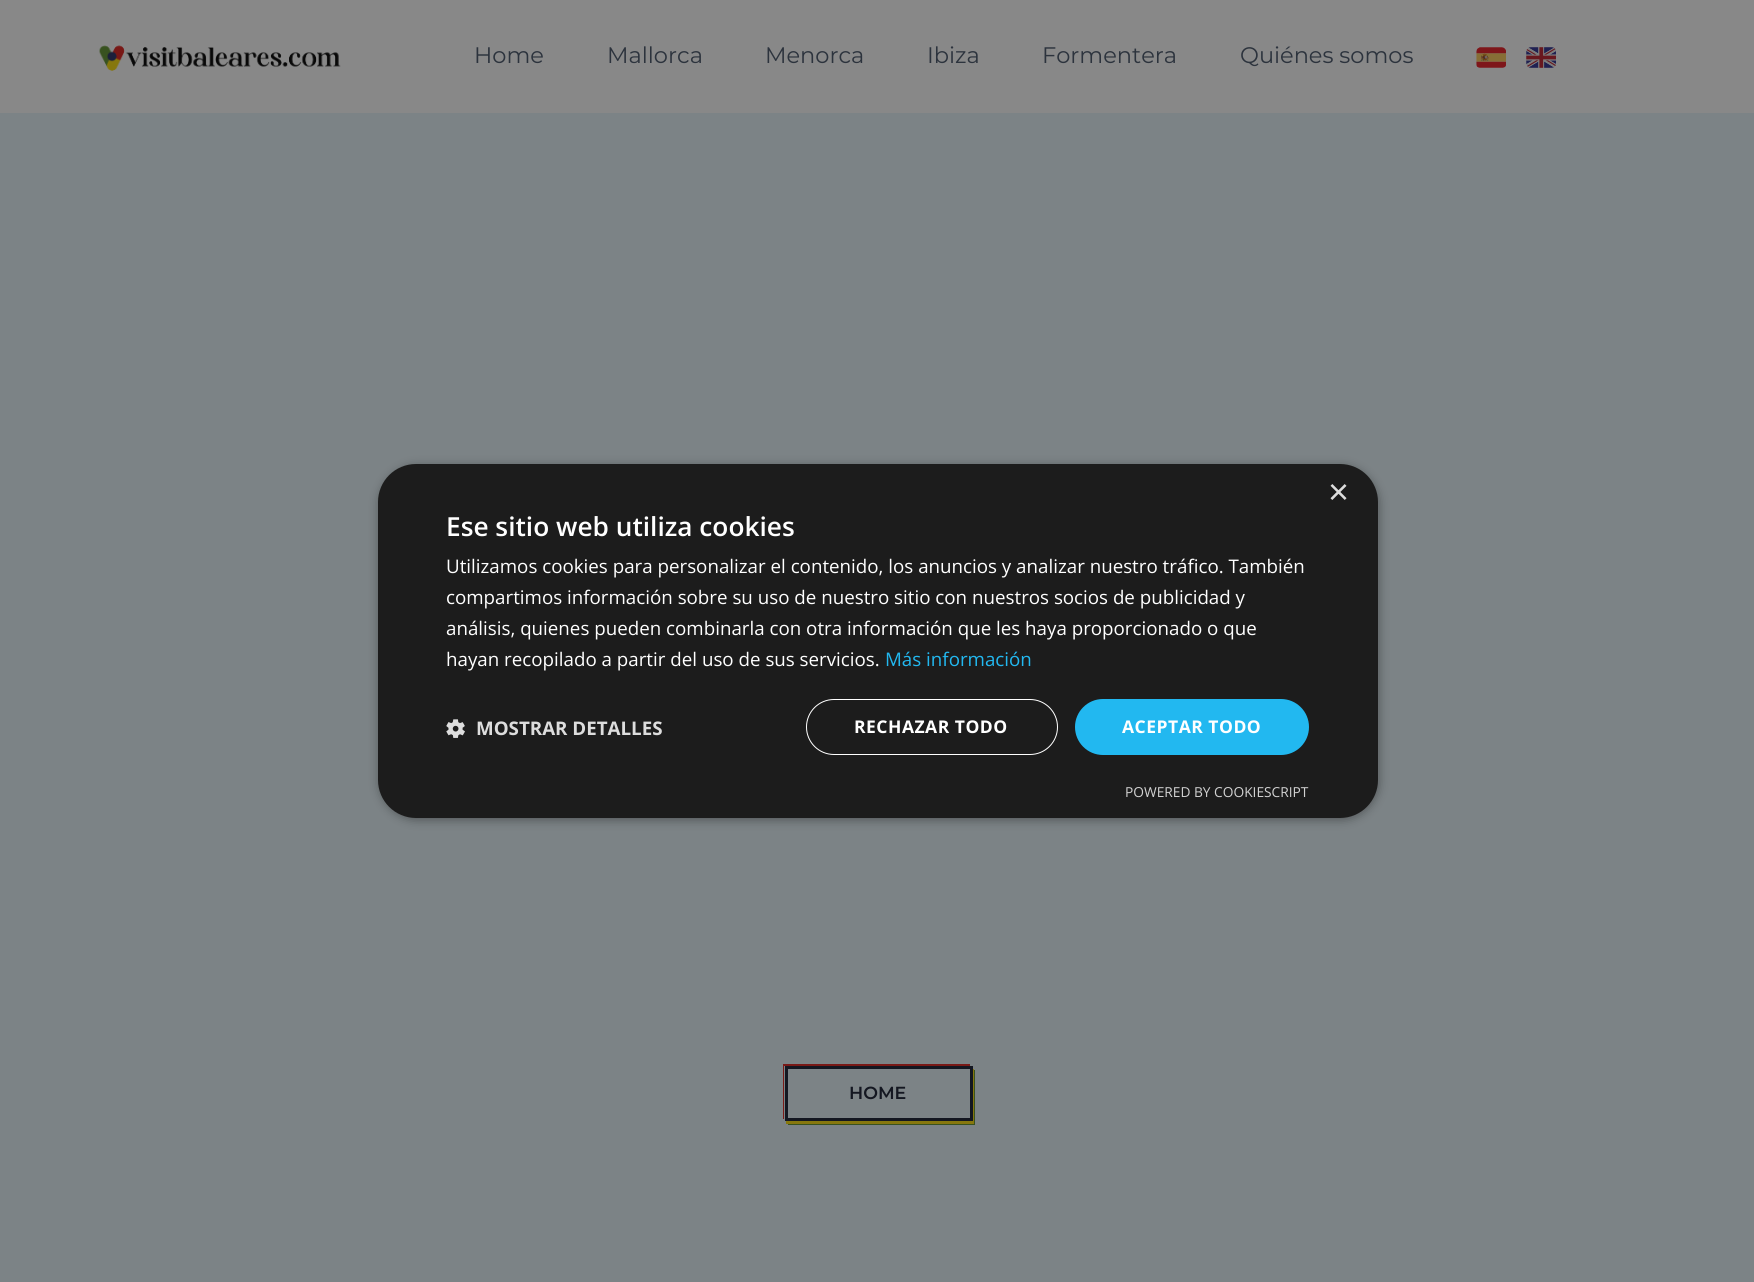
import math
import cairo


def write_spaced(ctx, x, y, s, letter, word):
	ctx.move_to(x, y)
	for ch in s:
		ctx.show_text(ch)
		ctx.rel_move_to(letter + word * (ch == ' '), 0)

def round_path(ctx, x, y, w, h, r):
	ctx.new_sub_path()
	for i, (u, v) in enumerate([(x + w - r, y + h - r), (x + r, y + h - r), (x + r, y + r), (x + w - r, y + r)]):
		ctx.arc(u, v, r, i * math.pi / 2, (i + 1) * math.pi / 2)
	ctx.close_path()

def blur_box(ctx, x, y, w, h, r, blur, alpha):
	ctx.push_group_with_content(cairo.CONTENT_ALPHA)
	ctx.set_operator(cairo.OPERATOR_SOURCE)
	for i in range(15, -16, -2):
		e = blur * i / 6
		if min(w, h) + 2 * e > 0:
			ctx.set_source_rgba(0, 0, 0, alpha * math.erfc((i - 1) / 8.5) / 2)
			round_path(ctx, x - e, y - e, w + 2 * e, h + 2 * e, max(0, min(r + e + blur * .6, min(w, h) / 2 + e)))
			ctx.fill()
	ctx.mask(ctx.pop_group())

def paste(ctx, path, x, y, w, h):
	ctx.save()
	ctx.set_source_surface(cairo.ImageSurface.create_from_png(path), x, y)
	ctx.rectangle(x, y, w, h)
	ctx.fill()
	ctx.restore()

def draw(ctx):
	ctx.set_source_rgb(0.533, 0.533, 0.533)
	ctx.paint()
	paste(ctx, 'media/1.png', 99, 45, 242, 26)
	ctx.select_font_face('Montserrat')
	ctx.set_font_size(22.5)
	ctx.set_source_rgb(0.173, 0.2, 0.239)
	for x, y, s in [
		(474, 63, 'Home'),
		(607, 63, 'Mallorca'),
		(765, 63, 'Menorca'),
		(927, 63, 'Ibiza'),
		(1042, 63, 'Formentera'),
		(1240, 63, 'Quiénes somos'),
	]:
		ctx.move_to(x, y)
		ctx.show_text(s)
	paste(ctx, 'media/2.png', 1476, 47, 30, 21)
	paste(ctx, 'media/3.png', 1526, 47, 30, 21)
	ctx.set_source_rgb(0.486, 0.514, 0.525)
	ctx.rectangle(0, 113, 1754, 1169)
	ctx.fill()
	ctx.set_source_rgb(0.224, 0.322, 0.125)
	ctx.new_path()
	ctx.move_to(788, 1121)
	ctx.line_to(788, 1125)
	ctx.line_to(975, 1125)
	ctx.line_to(975, 1070)
	ctx.line_to(972, 1070)
	ctx.line_to(972, 1121)
	ctx.close_path()
	ctx.fill()
	ctx.set_source_rgb(0.529, 0.467, 0.051)
	ctx.new_path()
	ctx.move_to(786, 1121)
	ctx.line_to(786, 1124)
	ctx.line_to(974, 1124)
	ctx.line_to(974, 1069)
	ctx.line_to(972, 1069)
	ctx.line_to(972, 1121)
	ctx.close_path()
	ctx.fill()
	ctx.set_source_rgb(0.475, 0.098, 0.086)
	ctx.new_path()
	ctx.move_to(783, 1064)
	ctx.line_to(783, 1119)
	ctx.line_to(784, 1119)
	ctx.line_to(784, 1066)
	ctx.line_to(970, 1066)
	ctx.line_to(970, 1064)
	ctx.close_path()
	ctx.fill()
	ctx.rectangle(786.5, 1067.5, 185, 52)
	ctx.set_source_rgb(0.082, 0.09, 0.129)
	ctx.set_line_width(3)
	ctx.stroke()
	ctx.select_font_face('Montserrat SemiBold')
	ctx.set_font_size(17.5)
	ctx.move_to(849, 1099)
	ctx.show_text('HOME')
	ctx.set_source_rgb(0, 0, 0)
	blur_box(ctx, 379, 466, 1000, 354, 38, 5, 0.35)
	ctx.set_source_rgb(0.11, 0.11, 0.11)
	round_path(ctx, 378, 464, 1000, 354, 38)
	ctx.fill()
	ctx.select_font_face('Liberation Sans')
	ctx.set_font_size(36)
	ctx.set_source_rgb(0.867, 0.867, 0.867)
	ctx.move_to(1328, 504)
	ctx.show_text('×')
	ctx.select_font_face('Open Sans SemiBold')
	ctx.set_font_size(26.25)
	ctx.set_source_rgb(1, 1, 1)
	ctx.move_to(446, 536)
	ctx.show_text('Ese sitio web utiliza cookies')
	ctx.select_font_face('Open Sans')
	ctx.set_font_size(18.75)
	for x, y, s in [
		(446, 573, 'Utilizamos cookies para personalizar el contenido, los anuncios y analizar nuestro tráfico. También'),
		(446, 604, 'compartimos información sobre su uso de nuestro sitio con nuestros socios de publicidad y'),
		(446, 635, 'análisis, quienes pueden combinarla con otra información que les haya proporcionado o que'),
		(446, 666, 'hayan recopilado a partir del uso de sus servicios.'),
	]:
		ctx.move_to(x, y)
		ctx.show_text(s)
	ctx.set_source_rgb(0.133, 0.722, 0.941)
	ctx.move_to(885, 666)
	ctx.show_text('Más información')
	paste(ctx, 'media/4.png', 446, 719, 19, 19)
	ctx.select_font_face('Open Sans', cairo.FONT_SLANT_NORMAL, cairo.FONT_WEIGHT_BOLD)
	ctx.set_source_rgb(0.867, 0.867, 0.867)
	ctx.move_to(476, 735)
	ctx.show_text('MOSTRAR DETALLES')
	round_path(ctx, 806.5, 699.5, 251, 55, 27.5)
	ctx.set_source_rgb(1, 1, 1)
	ctx.set_line_width(1)
	ctx.stroke()
	ctx.set_font_size(17.5)
	write_spaced(ctx, 854, 733, 'RECHAZAR TODO', 0.5, 0)
	ctx.set_source_rgb(0.133, 0.722, 0.941)
	round_path(ctx, 1075, 699, 234, 56, 28)
	ctx.fill()
	ctx.set_source_rgb(1, 1, 1)
	write_spaced(ctx, 1122, 733, 'ACEPTAR TODO', 0.5, 0)
	ctx.select_font_face('Open Sans')
	ctx.set_font_size(13.75)
	ctx.set_source_rgb(0.824, 0.824, 0.824)
	ctx.move_to(1125, 797)
	ctx.show_text('POWERED BY COOKIESCRIPT')


surface = cairo.ImageSurface(cairo.FORMAT_RGB24, 1754, 1282)
ctx = cairo.Context(surface)
options = cairo.FontOptions()
options.set_hint_metrics(cairo.HINT_METRICS_OFF)
options.set_hint_style(cairo.HINT_STYLE_NONE)
ctx.set_font_options(options)
ctx.set_miter_limit(4)
draw(ctx)
surface.write_to_png('image.png')
